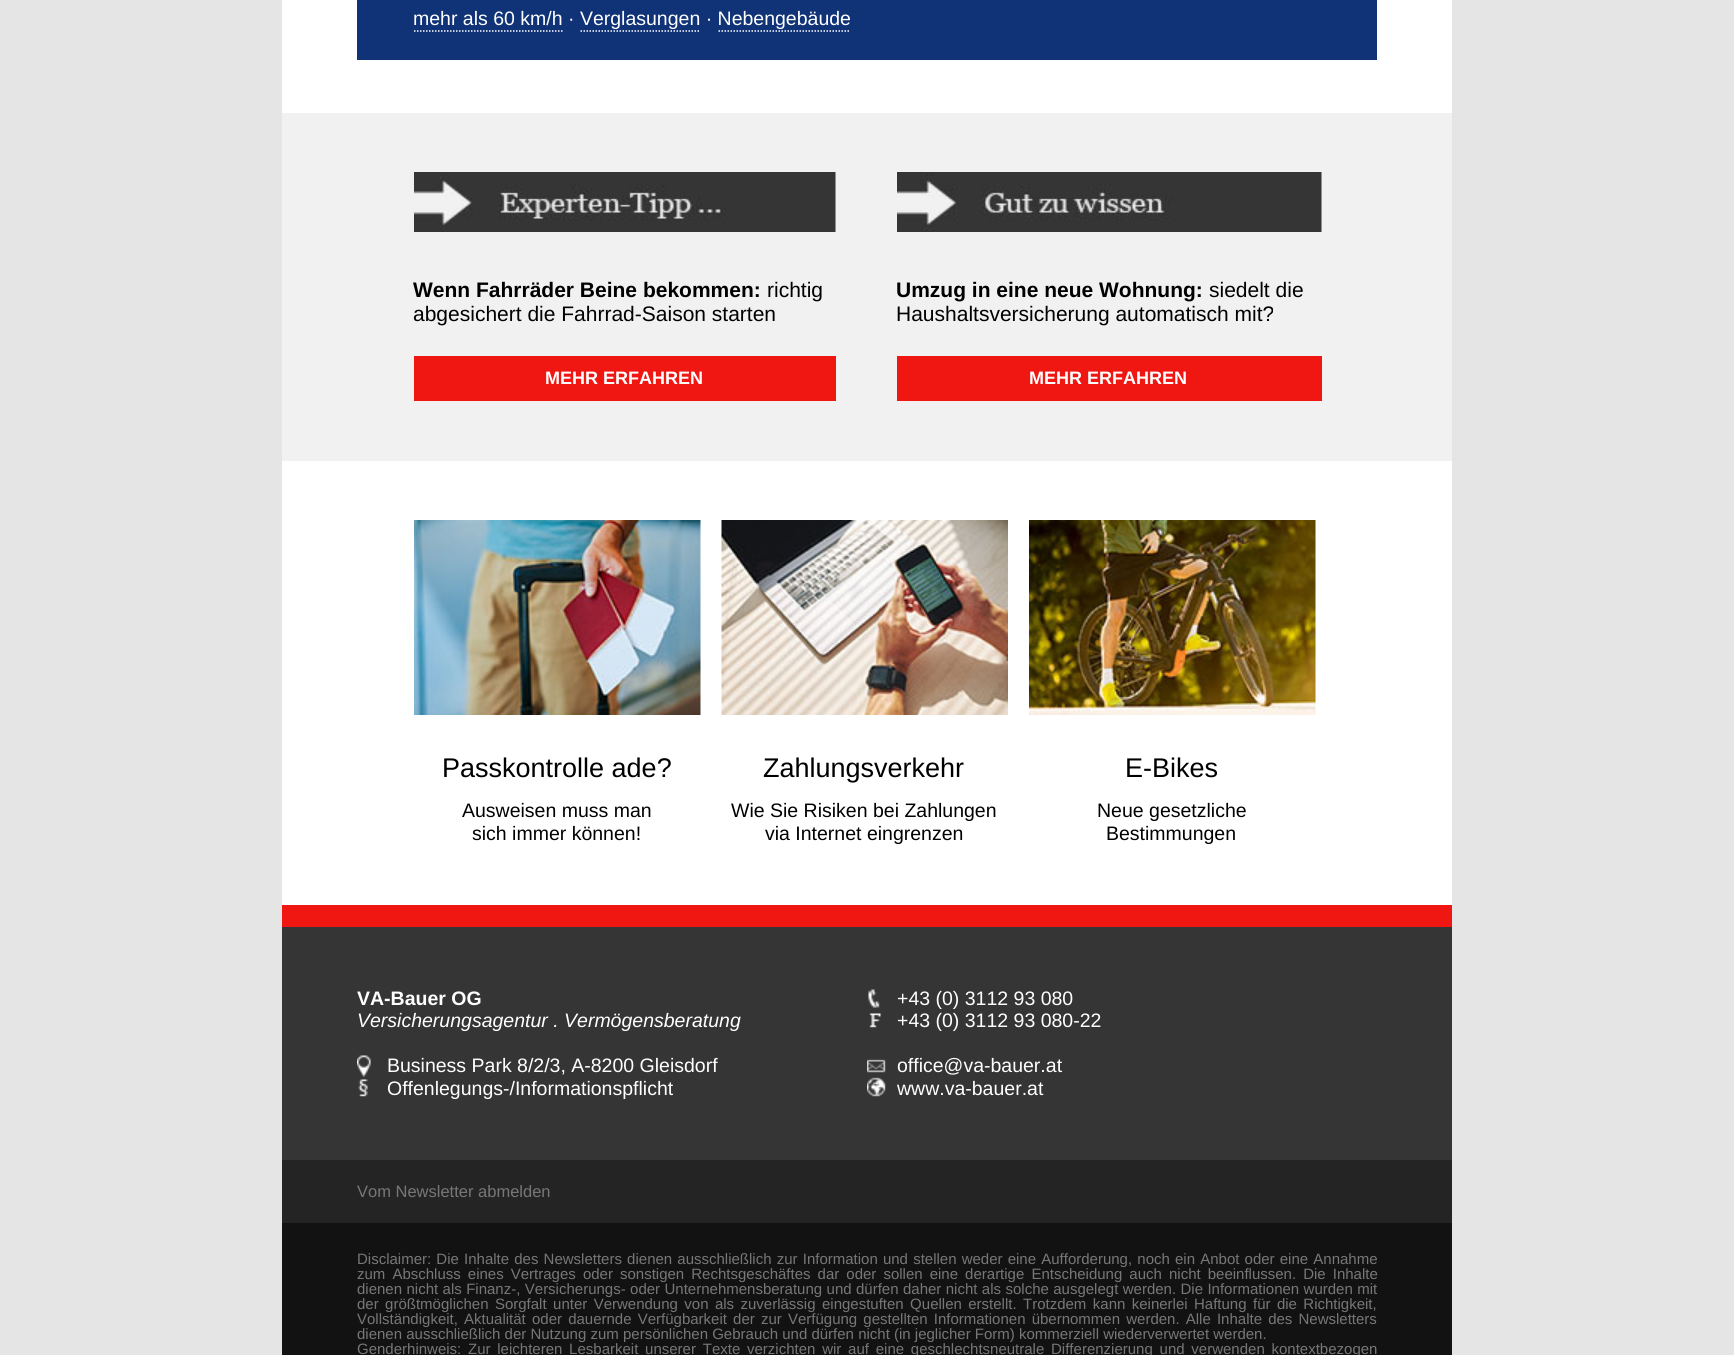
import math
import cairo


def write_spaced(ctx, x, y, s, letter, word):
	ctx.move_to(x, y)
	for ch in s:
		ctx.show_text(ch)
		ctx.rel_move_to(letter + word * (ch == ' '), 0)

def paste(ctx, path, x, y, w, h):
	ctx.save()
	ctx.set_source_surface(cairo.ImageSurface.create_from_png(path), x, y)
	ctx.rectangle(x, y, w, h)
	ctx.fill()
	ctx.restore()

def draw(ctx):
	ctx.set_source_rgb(0.902, 0.898, 0.898)
	ctx.paint()
	ctx.set_source_rgb(1, 1, 1)
	ctx.rectangle(282, 0, 1170, 113)
	ctx.fill()
	ctx.set_source_rgb(0.063, 0.196, 0.463)
	ctx.rectangle(357, 0, 1020, 60)
	ctx.fill()
	ctx.select_font_face('Liberation Sans')
	ctx.set_font_size(19.5)
	ctx.set_source_rgb(1, 1, 1)
	ctx.move_to(413, 25)
	ctx.show_text('mehr als 60 km/h · Verglasungen · Nebengebäude')
	ctx.new_path()
	ctx.move_to(414, 31)
	ctx.line_to(562.5, 31)
	ctx.set_line_width(1.5)
	ctx.set_dash([1.5, 1.5])
	ctx.stroke()
	ctx.new_path()
	ctx.move_to(580.5, 31)
	ctx.line_to(700.5, 31)
	ctx.stroke()
	ctx.new_path()
	ctx.move_to(718.5, 31)
	ctx.line_to(850.5, 31)
	ctx.stroke()
	ctx.set_source_rgb(0.945, 0.945, 0.945)
	ctx.rectangle(282, 113, 1170, 348)
	ctx.fill()
	paste(ctx, 'media/1.png', 414, 172, 422, 60)
	ctx.select_font_face('Liberation Sans', cairo.FONT_SLANT_NORMAL, cairo.FONT_WEIGHT_BOLD)
	ctx.set_font_size(21)
	ctx.set_source_rgb(0, 0, 0)
	ctx.move_to(413, 297)
	ctx.show_text('Wenn Fahrräder Beine bekommen:')
	ctx.select_font_face('Liberation Sans')
	ctx.move_to(767, 297)
	ctx.show_text('richtig')
	ctx.move_to(413, 321)
	ctx.show_text('abgesichert die Fahrrad-Saison starten')
	ctx.set_source_rgb(0.941, 0.09, 0.078)
	ctx.rectangle(414, 356, 422, 45)
	ctx.fill()
	ctx.select_font_face('Liberation Sans', cairo.FONT_SLANT_NORMAL, cairo.FONT_WEIGHT_BOLD)
	ctx.set_font_size(18)
	ctx.set_source_rgb(1, 1, 1)
	ctx.move_to(545, 384)
	ctx.show_text('MEHR ERFAHREN')
	paste(ctx, 'media/2.png', 897, 172, 425, 60)
	ctx.set_font_size(21)
	ctx.set_source_rgb(0, 0, 0)
	ctx.move_to(896, 297)
	ctx.show_text('Umzug in eine neue Wohnung:')
	ctx.select_font_face('Liberation Sans')
	ctx.move_to(1209, 297)
	ctx.show_text('siedelt die')
	ctx.move_to(896, 321)
	ctx.show_text('Haushaltsversicherung automatisch mit?')
	ctx.set_source_rgb(0.941, 0.09, 0.078)
	ctx.rectangle(897, 356, 425, 45)
	ctx.fill()
	ctx.select_font_face('Liberation Sans', cairo.FONT_SLANT_NORMAL, cairo.FONT_WEIGHT_BOLD)
	ctx.set_font_size(18)
	ctx.set_source_rgb(1, 1, 1)
	ctx.move_to(1029, 384)
	ctx.show_text('MEHR ERFAHREN')
	ctx.rectangle(282, 461, 1170, 444)
	ctx.fill()
	paste(ctx, 'media/3.png', 414, 520, 287, 195)
	ctx.select_font_face('Liberation Sans')
	ctx.set_font_size(27)
	ctx.set_source_rgb(0, 0, 0)
	ctx.move_to(442, 777)
	ctx.show_text('Passkontrolle ade?')
	ctx.set_font_size(19.5)
	ctx.move_to(462, 817)
	ctx.show_text('Ausweisen muss man')
	ctx.move_to(472, 840)
	ctx.show_text('sich immer können!')
	paste(ctx, 'media/4.png', 721, 520, 287, 195)
	ctx.set_font_size(27)
	ctx.move_to(763, 777)
	ctx.show_text('Zahlungsverkehr')
	ctx.set_font_size(19.5)
	ctx.move_to(731, 817)
	ctx.show_text('Wie Sie Risiken bei Zahlungen')
	ctx.move_to(765, 840)
	ctx.show_text('via Internet eingrenzen')
	paste(ctx, 'media/5.png', 1029, 520, 287, 195)
	ctx.set_font_size(27)
	ctx.move_to(1125, 777)
	ctx.show_text('E-Bikes')
	ctx.set_font_size(19.5)
	ctx.move_to(1097, 817)
	ctx.show_text('Neue gesetzliche')
	ctx.move_to(1106, 840)
	ctx.show_text('Bestimmungen')
	ctx.set_source_rgb(0.941, 0.09, 0.078)
	ctx.rectangle(282, 905, 1170, 22)
	ctx.fill()
	ctx.set_source_rgb(0.208, 0.208, 0.208)
	ctx.rectangle(282, 927, 1170, 233)
	ctx.fill()
	ctx.select_font_face('Liberation Sans', cairo.FONT_SLANT_NORMAL, cairo.FONT_WEIGHT_BOLD)
	ctx.set_source_rgb(1, 1, 1)
	ctx.move_to(357, 1005)
	ctx.show_text('VA-Bauer OG')
	ctx.select_font_face('Liberation Sans', cairo.FONT_SLANT_ITALIC)
	ctx.move_to(357, 1027)
	ctx.show_text('Versicherungsagentur . Vermögensberatung')
	paste(ctx, 'media/6.png', 357, 1055, 14, 22)
	ctx.select_font_face('Liberation Sans')
	ctx.move_to(387, 1072)
	ctx.show_text('Business Park 8/2/3, A-8200 Gleisdorf')
	paste(ctx, 'media/7.png', 358, 1079, 10, 18)
	ctx.move_to(387, 1095)
	ctx.show_text('Offenlegungs-/Informationspflicht')
	paste(ctx, 'media/8.png', 868, 989, 12, 19)
	ctx.move_to(897, 1005)
	ctx.show_text('+43 (0) 3112 93 080')
	paste(ctx, 'media/9.png', 869, 1013, 12, 15)
	ctx.move_to(897, 1027)
	ctx.show_text('+43 (0) 3112 93 080-22')
	paste(ctx, 'media/10.png', 867, 1059, 19, 14)
	ctx.move_to(897, 1072)
	ctx.show_text('office@va-bauer.at')
	paste(ctx, 'media/11.png', 867, 1077, 19, 20)
	ctx.move_to(897, 1095)
	ctx.show_text('www.va-bauer.at')
	ctx.set_source_rgb(0.141, 0.141, 0.141)
	ctx.rectangle(282, 1160, 1170, 63)
	ctx.fill()
	ctx.set_font_size(16.5)
	ctx.set_source_rgb(0.467, 0.467, 0.467)
	ctx.move_to(357, 1197)
	ctx.show_text('Vom Newsletter abmelden')
	ctx.set_source_rgb(0.071, 0.071, 0.071)
	ctx.rectangle(282, 1223, 1170, 132)
	ctx.fill()
	ctx.set_font_size(15)
	ctx.set_source_rgb(0.467, 0.467, 0.467)
	write_spaced(ctx, 357, 1264, 'Disclaimer: Die Inhalte des Newsletters dienen ausschließlich zur Information und stellen weder eine Aufforderung, noch ein Anbot oder eine Annahme', 0, 1)
	write_spaced(ctx, 357, 1279, 'zum Abschluss eines Vertrages oder sonstigen Rechtsgeschäftes dar oder sollen eine derartige Entscheidung auch nicht beeinflussen. Die Inhalte', 0, 2.9)
	write_spaced(ctx, 357, 1294, 'dienen nicht als Finanz-, Versicherungs- oder Unternehmensberatung und dürfen daher nicht als solche ausgelegt werden. Die Informationen wurden mit', 0, 0.25)
	write_spaced(ctx, 357, 1309, 'der größtmöglichen Sorgfalt unter Verwendung von als zuverlässig eingestuften Quellen erstellt. Trotzdem kann keinerlei Haftung für die Richtigkeit,', 0, 2.25)
	write_spaced(ctx, 357, 1324, 'Vollständigkeit, Aktualität oder dauernde Verfügbarkeit der zur Verfügung gestellten Informationen übernommen werden. Alle Inhalte des Newsletters', 0, 2)
	ctx.move_to(357, 1339)
	ctx.show_text('dienen ausschließlich der Nutzung zum persönlichen Gebrauch und dürfen nicht (in jeglicher Form) kommerziell wiederverwertet werden.')
	write_spaced(ctx, 357, 1354, 'Genderhinweis: Zur leichteren Lesbarkeit unserer Texte verzichten wir auf eine geschlechtsneutrale Differenzierung und verwenden kontextbezogen', 0, 2.6)


surface = cairo.ImageSurface(cairo.FORMAT_RGB24, 1734, 1355)
ctx = cairo.Context(surface)
options = cairo.FontOptions()
options.set_hint_metrics(cairo.HINT_METRICS_OFF)
options.set_hint_style(cairo.HINT_STYLE_NONE)
ctx.set_font_options(options)
ctx.set_miter_limit(4)
draw(ctx)
surface.write_to_png('image.png')
